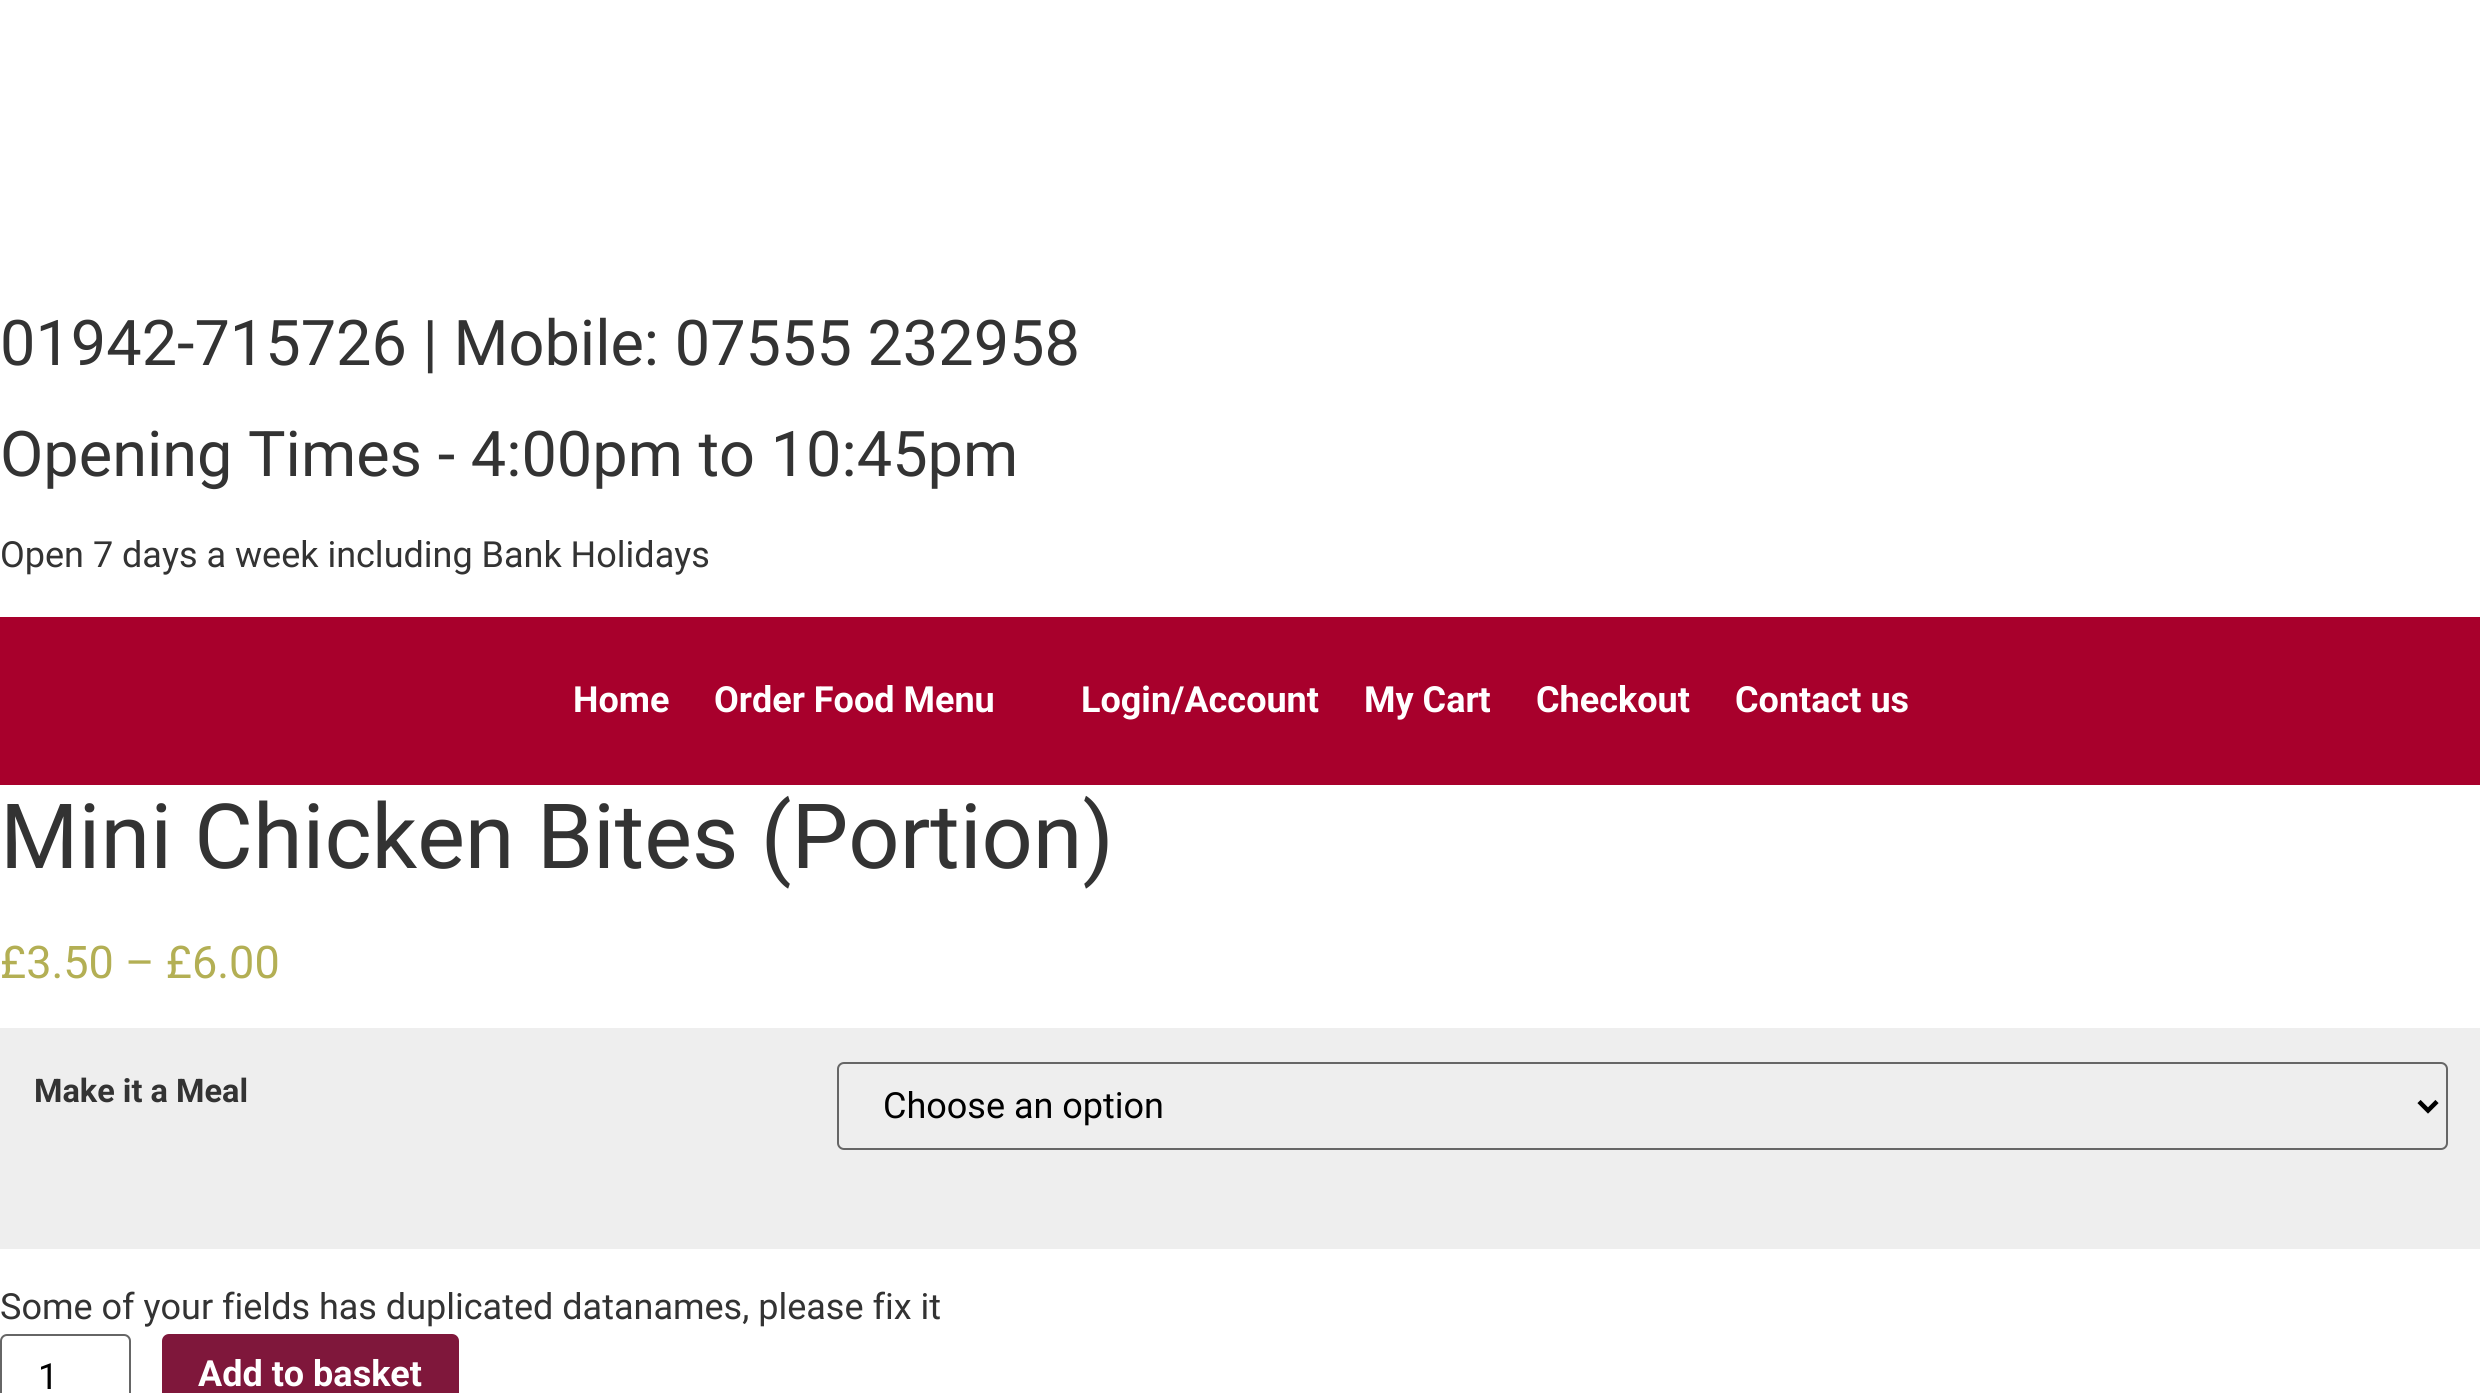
import math
import cairo


def round_path(ctx, x, y, w, h, r):
	ctx.new_sub_path()
	for i, (u, v) in enumerate([(x + w - r, y + h - r), (x + r, y + h - r), (x + r, y + r), (x + w - r, y + r)]):
		ctx.arc(u, v, r, i * math.pi / 2, (i + 1) * math.pi / 2)
	ctx.close_path()

def draw(ctx):
	ctx.set_source_rgb(1, 1, 1)
	ctx.paint()
	ctx.select_font_face('Roboto')
	ctx.set_font_size(63)
	ctx.set_source_rgb(0.2, 0.2, 0.2)
	ctx.move_to(0, 365)
	ctx.show_text('01942-715726 | Mobile: 07555 232958')
	ctx.move_to(0, 476)
	ctx.show_text('Opening Times - 4:00pm to 10:45pm')
	ctx.set_font_size(36)
	ctx.move_to(0, 567)
	ctx.show_text('Open 7 days a week including Bank Holidays')
	ctx.set_source_rgb(0.659, 0, 0.173)
	ctx.rectangle(0, 617, 2480, 168)
	ctx.fill()
	ctx.select_font_face('Roboto', cairo.FONT_SLANT_NORMAL, cairo.FONT_WEIGHT_BOLD)
	ctx.set_source_rgb(1, 1, 1)
	for x, y, s in [
		(573, 712, 'Home'),
		(714, 712, 'Order Food Menu'),
		(1081, 712, 'Login/Account'),
		(1364, 712, 'My Cart'),
		(1536, 712, 'Checkout'),
		(1735, 712, 'Contact us'),
	]:
		ctx.move_to(x, y)
		ctx.show_text(s)
	ctx.select_font_face('Roboto')
	ctx.set_font_size(90)
	ctx.set_source_rgb(0.2, 0.2, 0.2)
	ctx.move_to(0, 868)
	ctx.show_text('Mini Chicken Bites (Portion)')
	ctx.set_font_size(45)
	ctx.set_source_rgb(0.702, 0.686, 0.329)
	ctx.move_to(0, 978)
	ctx.show_text('£3.50 – £6.00')
	ctx.set_source_rgb(0.933, 0.933, 0.933)
	ctx.rectangle(0, 1028, 2480, 221)
	ctx.fill()
	ctx.select_font_face('Roboto', cairo.FONT_SLANT_NORMAL, cairo.FONT_WEIGHT_BOLD)
	ctx.set_font_size(32.5)
	ctx.set_source_rgb(0.2, 0.2, 0.2)
	ctx.move_to(34, 1102)
	ctx.show_text('Make it a Meal')
	round_path(ctx, 838, 1063, 1609, 86, 6)
	ctx.set_source_rgb(0.4, 0.4, 0.4)
	ctx.stroke()
	ctx.new_path()
	ctx.move_to(2419, 1101.5)
	ctx.line_to(2428, 1110.5)
	ctx.line_to(2437, 1101.5)
	ctx.set_source_rgb(0, 0, 0)
	ctx.set_line_width(4.5)
	ctx.stroke()
	ctx.select_font_face('Roboto')
	ctx.set_font_size(36)
	ctx.move_to(883, 1118)
	ctx.show_text('Choose an option')
	ctx.set_source_rgb(0.2, 0.2, 0.2)
	ctx.move_to(0, 1319)
	ctx.show_text('Some of your fields has duplicated datanames, please fix it')
	round_path(ctx, 1, 1335, 129, 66, 6)
	ctx.set_source_rgb(0.4, 0.4, 0.4)
	ctx.set_line_width(2)
	ctx.stroke()
	ctx.set_source_rgb(0, 0, 0)
	ctx.move_to(38, 1389)
	ctx.show_text('1')
	ctx.set_source_rgb(0.498, 0.09, 0.231)
	round_path(ctx, 162, 1334, 297, 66, 7)
	ctx.fill()
	ctx.select_font_face('Roboto', cairo.FONT_SLANT_NORMAL, cairo.FONT_WEIGHT_BOLD)
	ctx.set_source_rgb(1, 1, 1)
	ctx.move_to(198, 1386)
	ctx.show_text('Add to basket')


surface = cairo.ImageSurface(cairo.FORMAT_RGB24, 2480, 1393)
ctx = cairo.Context(surface)
options = cairo.FontOptions()
options.set_hint_metrics(cairo.HINT_METRICS_OFF)
options.set_hint_style(cairo.HINT_STYLE_NONE)
ctx.set_font_options(options)
ctx.set_miter_limit(4)
draw(ctx)
surface.write_to_png('image.png')
